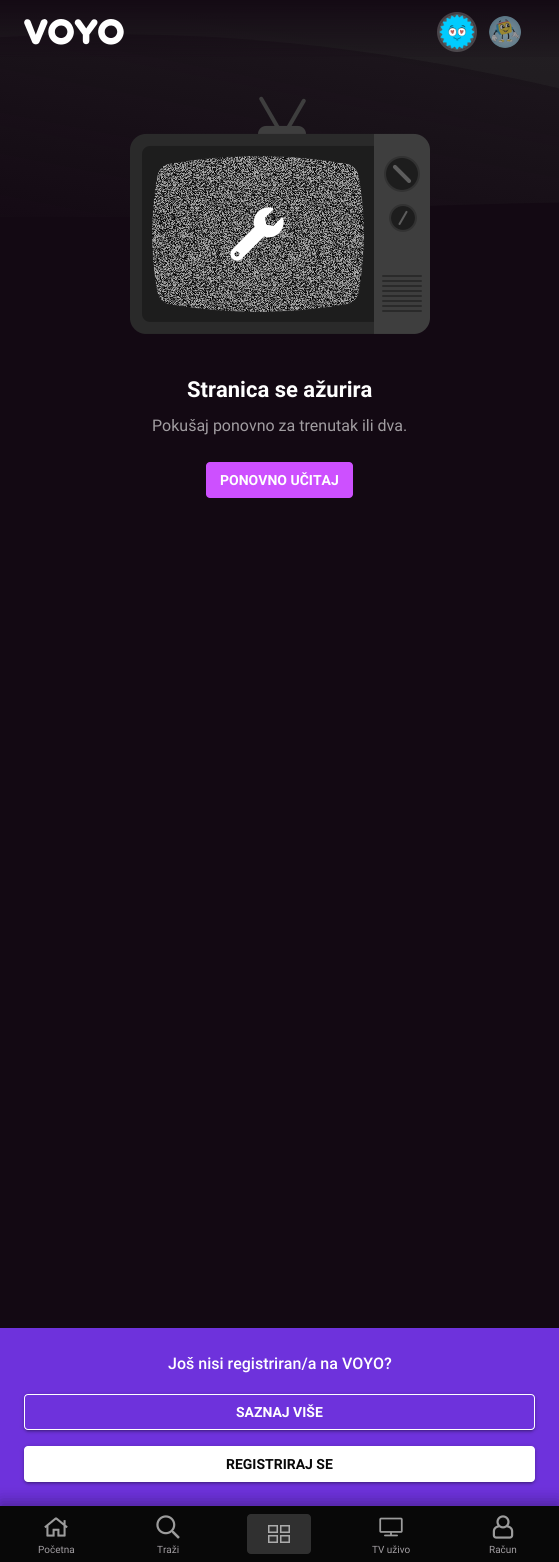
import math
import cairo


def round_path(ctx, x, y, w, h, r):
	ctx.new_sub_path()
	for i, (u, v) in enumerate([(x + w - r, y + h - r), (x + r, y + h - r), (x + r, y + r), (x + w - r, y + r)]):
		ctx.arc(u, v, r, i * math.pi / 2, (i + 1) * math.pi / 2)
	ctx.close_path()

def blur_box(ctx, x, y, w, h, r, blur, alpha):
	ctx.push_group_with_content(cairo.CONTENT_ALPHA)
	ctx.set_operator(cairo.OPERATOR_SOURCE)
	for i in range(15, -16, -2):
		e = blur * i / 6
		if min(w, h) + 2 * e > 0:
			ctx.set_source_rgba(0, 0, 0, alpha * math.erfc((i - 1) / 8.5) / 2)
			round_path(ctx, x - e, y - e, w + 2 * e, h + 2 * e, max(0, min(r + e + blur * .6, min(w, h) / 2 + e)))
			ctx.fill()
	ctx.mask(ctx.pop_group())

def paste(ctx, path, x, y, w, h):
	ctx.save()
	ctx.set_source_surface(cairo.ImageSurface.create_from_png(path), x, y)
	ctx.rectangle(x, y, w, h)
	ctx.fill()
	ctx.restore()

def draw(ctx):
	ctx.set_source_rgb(0.078, 0.039, 0.078)
	ctx.paint()
	paste(ctx, 'media/1.png', 0, 0, 559, 217)
	gradient = cairo.LinearGradient(280, 0, 280, 64)
	gradient.add_color_stop_rgba(0, 0.078, 0.039, 0.078, 1)
	gradient.add_color_stop_rgba(1, 0.078, 0.039, 0.078, 0)
	ctx.set_source(gradient)
	ctx.rectangle(0, 0, 559, 57)
	ctx.fill()
	paste(ctx, 'media/2.png', 24, 19, 100, 26)
	ctx.arc(457, 32, 19, 0, 2 * math.pi)
	ctx.set_source_rgba(1, 1, 1, 0.2)
	ctx.stroke()
	ctx.set_source_rgb(0.325, 0.341, 0.353)
	ctx.arc(457, 32, 18, 0, 2 * math.pi)
	ctx.fill()
	paste(ctx, 'media/3.png', 439, 14, 36, 36)
	ctx.set_source_rgba(0.325, 0.341, 0.353, 0.5)
	ctx.arc(505, 32, 16, 0, 2 * math.pi)
	ctx.fill()
	paste(ctx, 'media/4.png', 489, 16, 32, 32)
	paste(ctx, 'media/6.png', 152, 156, 212, 156)
	paste(ctx, 'media/7.png', 230, 207, 54, 54)
	paste(ctx, 'media/5.png', 130, 96, 300, 238)
	ctx.select_font_face('Roboto', cairo.FONT_SLANT_NORMAL, cairo.FONT_WEIGHT_BOLD)
	ctx.set_font_size(22)
	ctx.set_source_rgb(1, 1, 1)
	ctx.move_to(187, 397)
	ctx.show_text('Stranica se ažurira')
	ctx.select_font_face('Roboto')
	ctx.set_font_size(16)
	ctx.set_source_rgb(0.631, 0.616, 0.631)
	ctx.move_to(152, 431)
	ctx.show_text('Pokušaj ponovno za trenutak ili dva.')
	ctx.set_source_rgb(0.804, 0.314, 1)
	round_path(ctx, 206, 462, 147, 36, 4)
	ctx.fill()
	ctx.select_font_face('Roboto', cairo.FONT_SLANT_NORMAL, cairo.FONT_WEIGHT_BOLD)
	ctx.set_font_size(14)
	ctx.set_source_rgb(1, 1, 1)
	ctx.move_to(220, 485)
	ctx.show_text('PONOVNO UČITAJ')
	ctx.set_source_rgb(0.431, 0.196, 0.863)
	ctx.rectangle(0, 1328, 559, 178)
	ctx.fill()
	ctx.select_font_face('Roboto Medium')
	ctx.set_font_size(16)
	ctx.set_source_rgb(1, 1, 1)
	ctx.move_to(168, 1369)
	ctx.show_text('Još nisi registriran/a na VOYO?')
	ctx.save()
	ctx.set_fill_rule(cairo.FILL_RULE_EVEN_ODD)
	ctx.new_path()
	ctx.move_to(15, 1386)
	ctx.line_to(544, 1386)
	ctx.line_to(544, 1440)
	ctx.line_to(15, 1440)
	ctx.close_path()
	ctx.move_to(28, 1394)
	ctx.line_to(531, 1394)
	ctx.curve_to(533, 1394, 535, 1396, 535, 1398)
	ctx.line_to(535, 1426)
	ctx.curve_to(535, 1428, 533, 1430, 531, 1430)
	ctx.line_to(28, 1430)
	ctx.curve_to(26, 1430, 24, 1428, 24, 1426)
	ctx.line_to(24, 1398)
	ctx.curve_to(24, 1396, 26, 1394, 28, 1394)
	ctx.close_path()
	ctx.clip()
	ctx.set_source_rgb(0, 0, 0)
	blur_box(ctx, 24, 1395, 511, 36, 4, 2.5, 0.2)
	ctx.restore()
	ctx.save()
	ctx.set_fill_rule(cairo.FILL_RULE_EVEN_ODD)
	ctx.new_path()
	ctx.move_to(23, 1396)
	ctx.line_to(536, 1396)
	ctx.line_to(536, 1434)
	ctx.line_to(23, 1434)
	ctx.close_path()
	ctx.move_to(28, 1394)
	ctx.line_to(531, 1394)
	ctx.curve_to(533, 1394, 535, 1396, 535, 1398)
	ctx.line_to(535, 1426)
	ctx.curve_to(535, 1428, 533, 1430, 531, 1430)
	ctx.line_to(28, 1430)
	ctx.curve_to(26, 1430, 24, 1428, 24, 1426)
	ctx.line_to(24, 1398)
	ctx.curve_to(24, 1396, 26, 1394, 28, 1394)
	ctx.close_path()
	ctx.clip()
	ctx.set_source_rgb(0, 0, 0)
	blur_box(ctx, 26, 1399, 507, 32, 2, 0.5, 0.12)
	ctx.restore()
	ctx.save()
	ctx.set_fill_rule(cairo.FILL_RULE_EVEN_ODD)
	ctx.new_path()
	ctx.move_to(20, 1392)
	ctx.line_to(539, 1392)
	ctx.line_to(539, 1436)
	ctx.line_to(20, 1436)
	ctx.close_path()
	ctx.move_to(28, 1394)
	ctx.line_to(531, 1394)
	ctx.curve_to(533, 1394, 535, 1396, 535, 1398)
	ctx.line_to(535, 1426)
	ctx.curve_to(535, 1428, 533, 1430, 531, 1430)
	ctx.line_to(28, 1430)
	ctx.curve_to(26, 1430, 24, 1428, 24, 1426)
	ctx.line_to(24, 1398)
	ctx.curve_to(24, 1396, 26, 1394, 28, 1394)
	ctx.close_path()
	ctx.clip()
	ctx.set_source_rgb(0, 0, 0)
	blur_box(ctx, 24, 1396, 511, 36, 4, 1, 0.14)
	ctx.restore()
	round_path(ctx, 24.5, 1394.5, 510, 35, 3.5)
	ctx.set_line_width(1)
	ctx.stroke()
	ctx.select_font_face('Roboto', cairo.FONT_SLANT_NORMAL, cairo.FONT_WEIGHT_BOLD)
	ctx.set_font_size(14)
	ctx.move_to(236, 1417)
	ctx.show_text('SAZNAJ VIŠE')
	ctx.set_source_rgb(0, 0, 0)
	blur_box(ctx, 24, 1447, 511, 36, 4, 2.5, 0.2)
	blur_box(ctx, 26, 1451, 507, 32, 2, 0.5, 0.12)
	blur_box(ctx, 24, 1448, 511, 36, 4, 1, 0.14)
	ctx.set_source_rgb(1, 1, 1)
	round_path(ctx, 24, 1446, 511, 36, 4)
	ctx.fill()
	ctx.set_source_rgb(0.035, 0.035, 0.035)
	ctx.move_to(226, 1469)
	ctx.show_text('REGISTRIRAJ SE')
	ctx.set_source_rgb(0, 0, 0)
	blur_box(ctx, 0, 1502, 559, 56, 0, 8, 0.32)
	ctx.set_source_rgb(0.035, 0.035, 0.035)
	ctx.rectangle(0, 1506, 559, 56)
	ctx.fill()
	paste(ctx, 'media/8.png', 44, 1517, 24, 20)
	ctx.select_font_face('Roboto')
	ctx.set_font_size(10)
	ctx.set_source_rgb(0.631, 0.616, 0.631)
	ctx.move_to(38, 1553)
	ctx.show_text('Početna')
	paste(ctx, 'media/9.png', 156, 1515, 24, 24)
	ctx.move_to(157, 1553)
	ctx.show_text('Traži')
	ctx.set_source_rgb(0.188, 0.188, 0.188)
	round_path(ctx, 247, 1514, 64, 40, 4)
	ctx.fill()
	paste(ctx, 'media/10.png', 268, 1525, 22, 18)
	paste(ctx, 'media/11.png', 379, 1517, 24, 20)
	ctx.set_source_rgb(0.631, 0.616, 0.631)
	ctx.move_to(372, 1553)
	ctx.show_text('TV uživo')
	paste(ctx, 'media/12.png', 492, 1515, 22, 24)
	ctx.move_to(489, 1553)
	ctx.show_text('Račun')


surface = cairo.ImageSurface(cairo.FORMAT_RGB24, 559, 1562)
ctx = cairo.Context(surface)
options = cairo.FontOptions()
options.set_hint_metrics(cairo.HINT_METRICS_OFF)
options.set_hint_style(cairo.HINT_STYLE_NONE)
ctx.set_font_options(options)
ctx.set_miter_limit(4)
draw(ctx)
surface.write_to_png('image.png')
